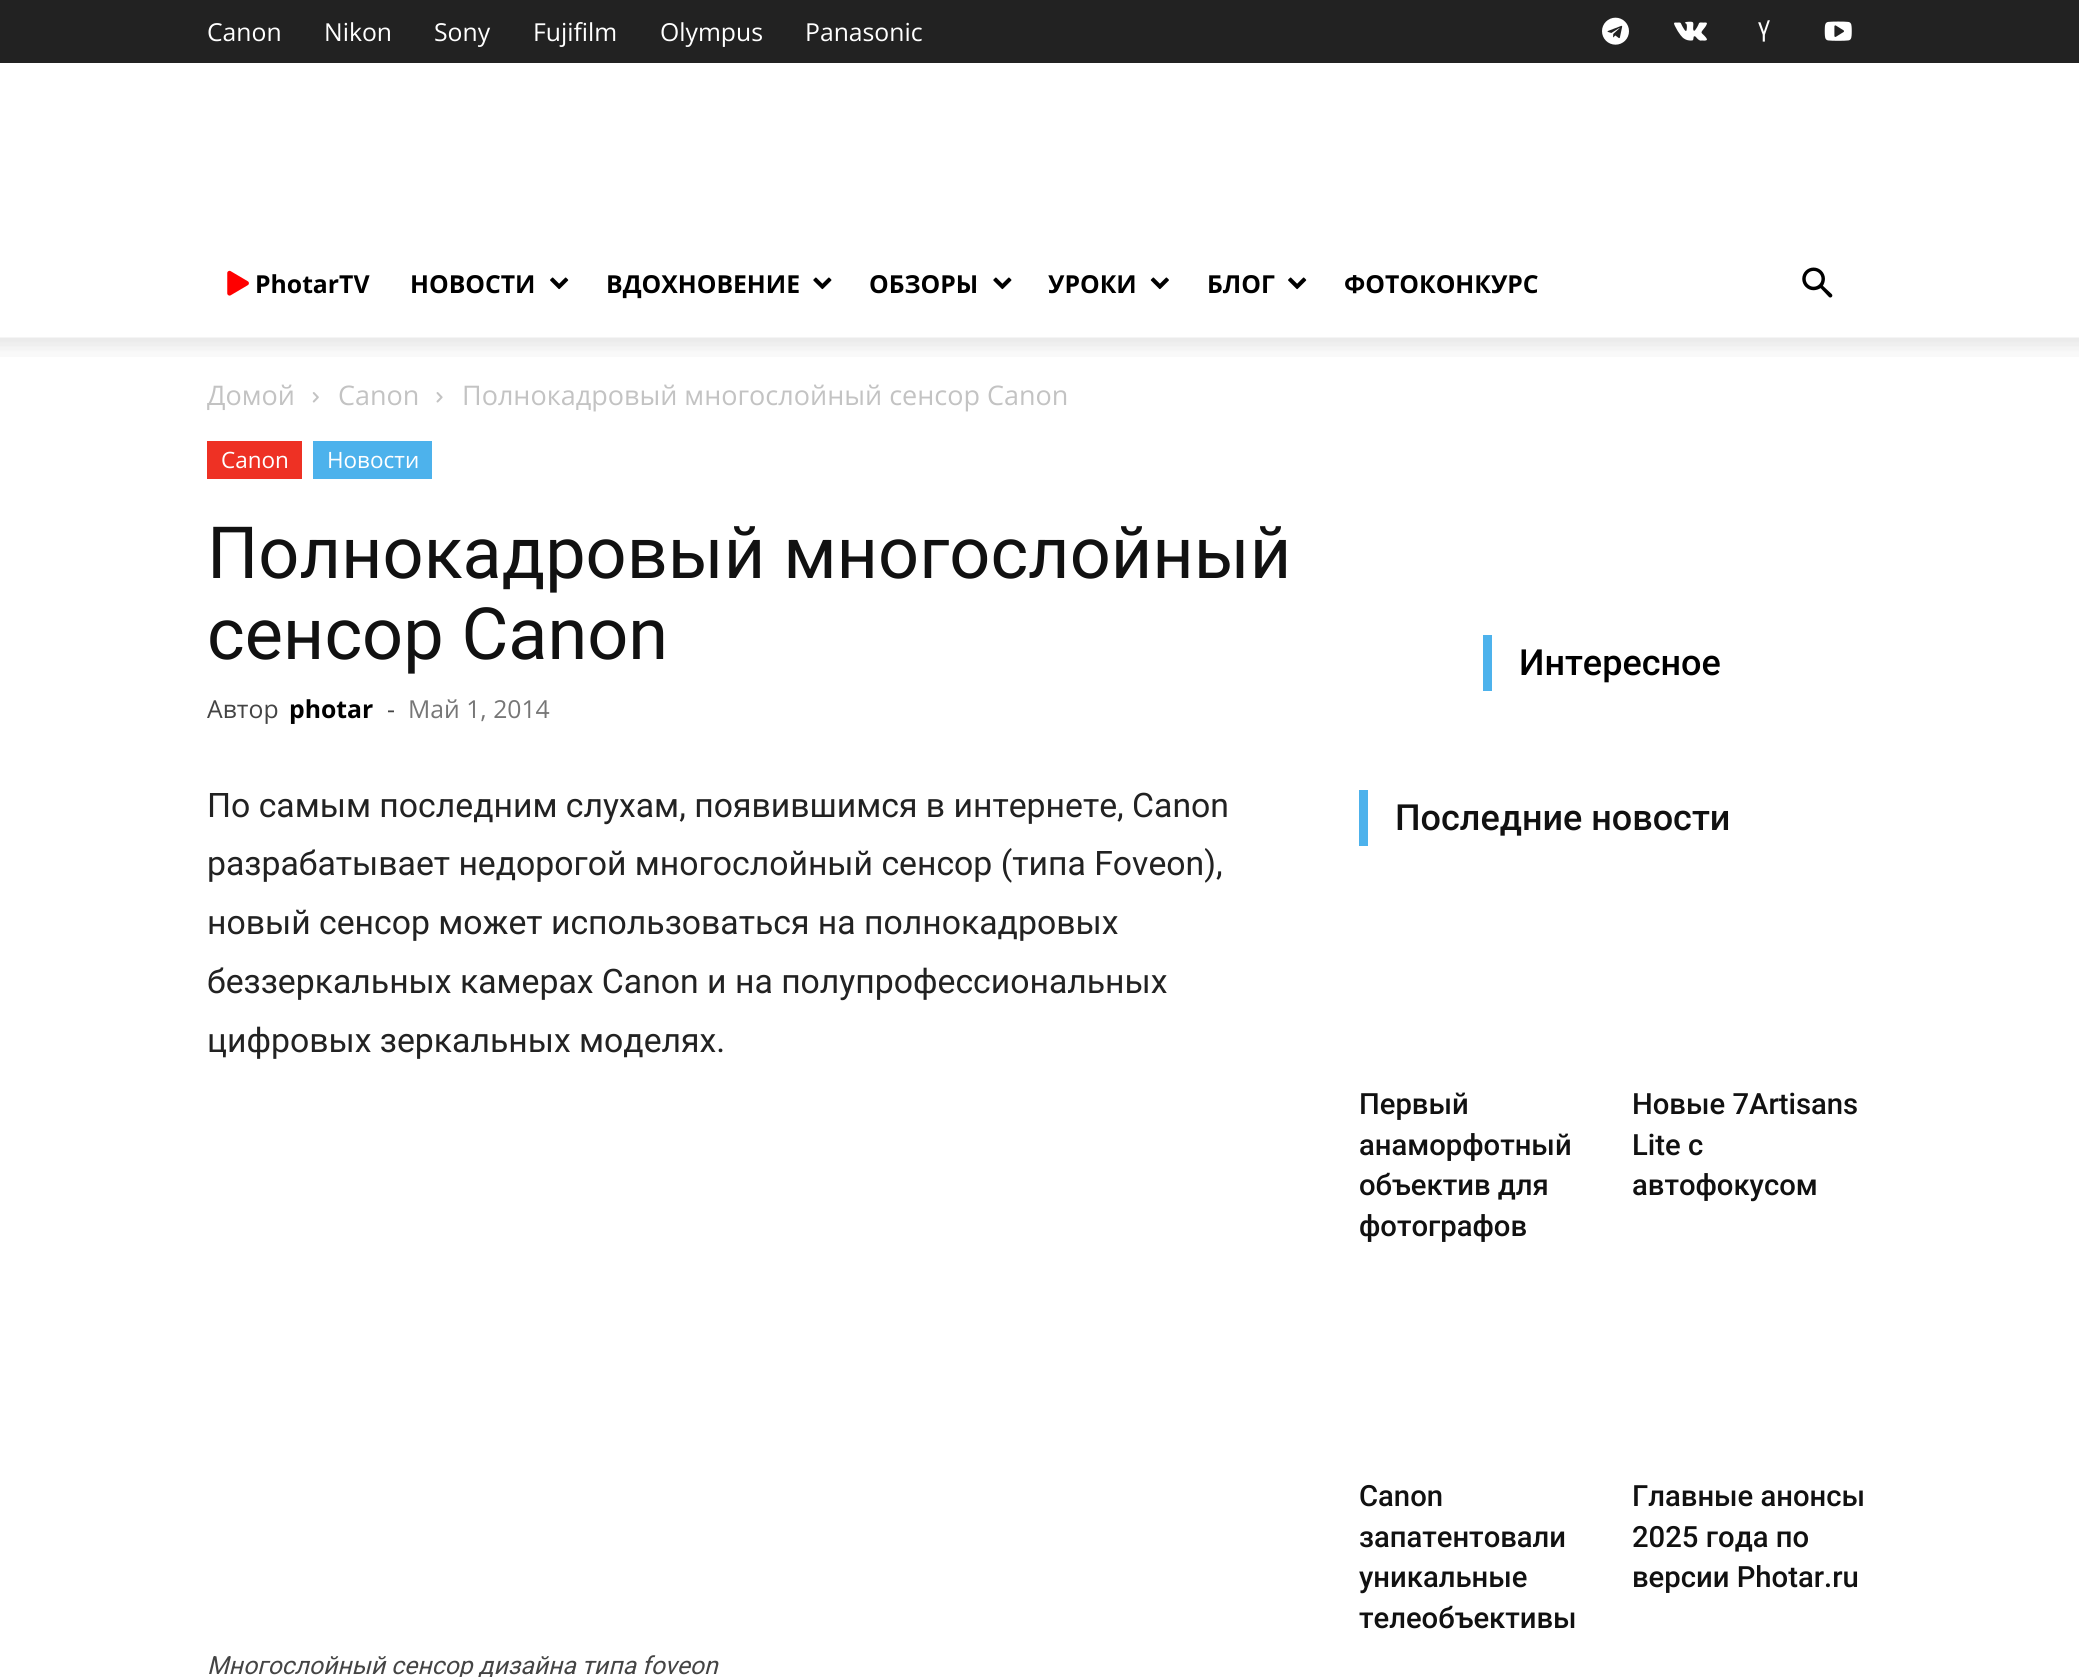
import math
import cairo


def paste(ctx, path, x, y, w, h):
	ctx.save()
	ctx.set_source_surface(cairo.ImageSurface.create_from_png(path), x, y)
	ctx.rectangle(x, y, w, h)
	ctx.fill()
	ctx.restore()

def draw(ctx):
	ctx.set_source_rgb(1, 1, 1)
	ctx.paint()
	ctx.set_source_rgb(0.133, 0.133, 0.133)
	ctx.rectangle(0, 0, 2079, 63)
	ctx.fill()
	ctx.select_font_face('Open Sans')
	ctx.set_font_size(24.75)
	ctx.set_source_rgb(1, 1, 1)
	for x, y, s in [
		(207, 41, 'Canon'),
		(324, 41, 'Nikon'),
		(434, 41, 'Sony'),
		(533, 41, 'Fujifilm'),
		(660, 41, 'Olympus'),
		(805, 41, 'Panasonic'),
	]:
		ctx.move_to(x, y)
		ctx.show_text(s)
	paste(ctx, 'media/1.png', 1602, 17, 27, 28)
	paste(ctx, 'media/2.png', 1674, 21, 33, 20)
	paste(ctx, 'media/3.png', 1758, 20, 12, 22)
	paste(ctx, 'media/4.png', 1824, 21, 28, 20)
	paste(ctx, 'media/5.png', 227, 270, 22, 26)
	ctx.select_font_face('Open Sans', cairo.FONT_SLANT_NORMAL, cairo.FONT_WEIGHT_BOLD)
	ctx.set_source_rgb(0, 0, 0)
	ctx.move_to(255, 293)
	ctx.show_text('PhotarTV')
	ctx.move_to(410, 293)
	ctx.show_text('НОВОСТИ')
	paste(ctx, 'media/6.png', 550, 277, 19, 13)
	ctx.move_to(606, 293)
	ctx.show_text('ВДОХНОВЕНИЕ')
	paste(ctx, 'media/7.png', 813, 277, 19, 13)
	ctx.move_to(869, 293)
	ctx.show_text('ОБЗОРЫ')
	paste(ctx, 'media/7.png', 993, 277, 19, 13)
	ctx.move_to(1048, 293)
	ctx.show_text('УРОКИ')
	paste(ctx, 'media/8.png', 1150, 277, 19, 13)
	ctx.move_to(1207, 293)
	ctx.show_text('БЛОГ')
	paste(ctx, 'media/6.png', 1288, 277, 19, 13)
	ctx.move_to(1344, 293)
	ctx.show_text('ФОТОКОНКУРС')
	paste(ctx, 'media/9.png', 1802, 267, 31, 31)
	paste(ctx, 'media/10.png', 0, 337, 2079, 20)
	ctx.select_font_face('Open Sans')
	ctx.set_font_size(27)
	ctx.set_source_rgb(0.765, 0.765, 0.765)
	ctx.move_to(207, 405)
	ctx.show_text('Домой')
	paste(ctx, 'media/11.png', 312, 392, 7, 11)
	ctx.move_to(338, 405)
	ctx.show_text('Canon')
	paste(ctx, 'media/12.png', 436, 392, 7, 11)
	ctx.move_to(462, 405)
	ctx.show_text('Полнокадровый многослойный сенсор Canon')
	ctx.set_source_rgb(0.933, 0.192, 0.141)
	ctx.rectangle(207, 441, 95, 38)
	ctx.fill()
	ctx.set_font_size(22.5)
	ctx.set_source_rgb(1, 1, 1)
	ctx.move_to(221, 468)
	ctx.show_text('Canon')
	ctx.set_source_rgb(0.302, 0.698, 0.925)
	ctx.rectangle(313, 441, 119, 38)
	ctx.fill()
	ctx.set_source_rgb(1, 1, 1)
	ctx.move_to(327, 468)
	ctx.show_text('Новости')
	ctx.select_font_face('Roboto')
	ctx.set_font_size(72)
	ctx.set_source_rgb(0.067, 0.067, 0.067)
	ctx.move_to(207, 578)
	ctx.show_text('Полнокадровый многослойный')
	ctx.move_to(207, 659)
	ctx.show_text('сенсор Canon')
	ctx.select_font_face('Open Sans')
	ctx.set_font_size(24.75)
	ctx.set_source_rgb(0.267, 0.267, 0.267)
	ctx.move_to(207, 718)
	ctx.show_text('Автор')
	ctx.select_font_face('Open Sans', cairo.FONT_SLANT_NORMAL, cairo.FONT_WEIGHT_BOLD)
	ctx.set_source_rgb(0, 0, 0)
	ctx.move_to(289, 718)
	ctx.show_text('photar')
	ctx.select_font_face('Open Sans')
	ctx.set_source_rgb(0.267, 0.267, 0.267)
	ctx.move_to(387, 718)
	ctx.show_text('-')
	ctx.set_source_rgb(0.463, 0.463, 0.463)
	ctx.move_to(408, 718)
	ctx.show_text('Май 1, 2014')
	ctx.select_font_face('Roboto')
	ctx.set_font_size(33.75)
	ctx.set_source_rgb(0.133, 0.133, 0.133)
	for x, y, s in [
		(207, 817, 'По самым последним слухам, появившимся в интернете, Canon'),
		(207, 875, 'разрабатывает недорогой многослойный сенсор (типа Foveon),'),
		(207, 934, 'новый сенсор может использоваться на полнокадровых'),
		(207, 993, 'беззеркальных камерах Canon и на полупрофессиональных'),
		(207, 1052, 'цифровых зеркальных моделях.'),
	]:
		ctx.move_to(x, y)
		ctx.show_text(s)
	ctx.select_font_face('Roboto', cairo.FONT_SLANT_ITALIC)
	ctx.set_font_size(24.75)
	ctx.set_source_rgb(0.267, 0.267, 0.267)
	ctx.move_to(207, 1674)
	ctx.show_text('Многослойный сенсор дизайна типа foveоn')
	ctx.set_source_rgb(0.302, 0.698, 0.925)
	ctx.rectangle(1483, 635, 9, 56)
	ctx.fill()
	ctx.select_font_face('Roboto Medium')
	ctx.set_font_size(36)
	ctx.set_source_rgb(0, 0, 0)
	ctx.move_to(1519, 675)
	ctx.show_text('Интересное')
	ctx.set_source_rgb(0.302, 0.698, 0.925)
	ctx.rectangle(1359, 790, 9, 56)
	ctx.fill()
	ctx.set_source_rgb(0.067, 0.067, 0.067)
	ctx.move_to(1395, 830)
	ctx.show_text('Последние новости')
	ctx.set_font_size(29.25)
	for x, y, s in [
		(1359, 1114, 'Первый'),
		(1359, 1155, 'анаморфотный'),
		(1359, 1195, 'объектив для'),
		(1359, 1236, 'фотографов'),
		(1632, 1114, 'Новые 7Artisans'),
		(1632, 1155, 'Lite с'),
		(1632, 1195, 'автофокусом'),
		(1359, 1506, 'Canon'),
		(1359, 1547, 'запатентовали'),
		(1359, 1587, 'уникальные'),
		(1359, 1628, 'телеобъективы'),
		(1632, 1506, 'Главные анонсы'),
		(1632, 1547, '2025 года по'),
		(1632, 1587, 'версии Photar.ru'),
	]:
		ctx.move_to(x, y)
		ctx.show_text(s)


surface = cairo.ImageSurface(cairo.FORMAT_RGB24, 2079, 1677)
ctx = cairo.Context(surface)
options = cairo.FontOptions()
options.set_hint_metrics(cairo.HINT_METRICS_OFF)
options.set_hint_style(cairo.HINT_STYLE_NONE)
ctx.set_font_options(options)
ctx.set_miter_limit(4)
draw(ctx)
surface.write_to_png('image.png')
